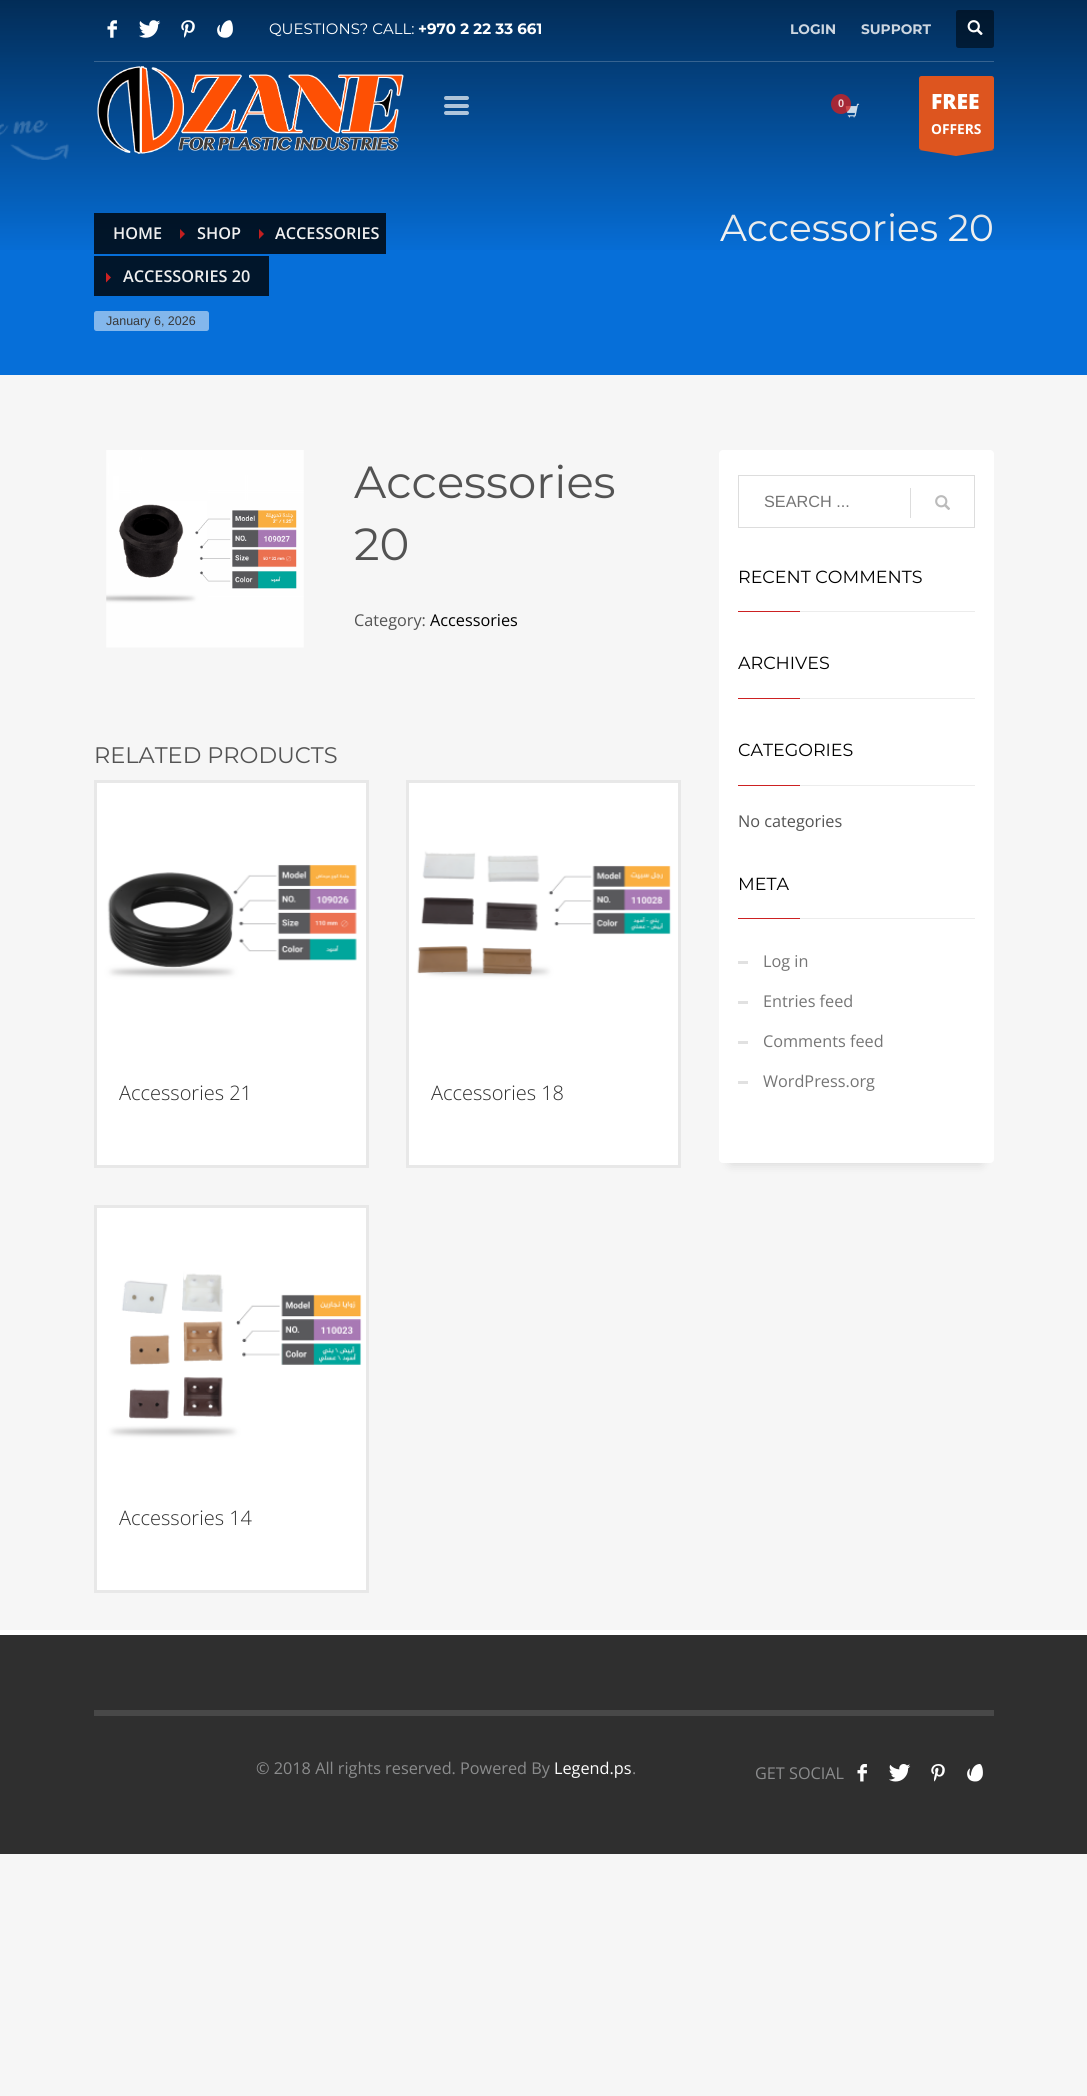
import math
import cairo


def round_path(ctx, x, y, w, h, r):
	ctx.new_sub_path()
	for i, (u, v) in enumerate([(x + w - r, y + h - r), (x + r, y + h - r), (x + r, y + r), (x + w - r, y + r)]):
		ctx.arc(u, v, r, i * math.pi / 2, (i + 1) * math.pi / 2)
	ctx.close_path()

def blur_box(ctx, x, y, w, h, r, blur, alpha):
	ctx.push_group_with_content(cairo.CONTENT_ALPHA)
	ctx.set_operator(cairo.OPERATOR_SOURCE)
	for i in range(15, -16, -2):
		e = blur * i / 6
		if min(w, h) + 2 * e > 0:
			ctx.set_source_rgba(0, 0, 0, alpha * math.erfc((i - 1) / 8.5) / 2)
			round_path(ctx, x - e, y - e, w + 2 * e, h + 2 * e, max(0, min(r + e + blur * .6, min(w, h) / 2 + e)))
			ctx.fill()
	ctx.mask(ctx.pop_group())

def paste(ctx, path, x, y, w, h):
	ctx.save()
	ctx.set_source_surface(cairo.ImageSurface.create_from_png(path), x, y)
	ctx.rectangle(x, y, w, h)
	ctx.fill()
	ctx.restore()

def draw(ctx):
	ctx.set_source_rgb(0.961, 0.961, 0.961)
	ctx.paint()
	ctx.set_source_rgb(0.024, 0.435, 0.851)
	ctx.rectangle(0, 0, 1087, 375)
	ctx.fill()
	ctx.set_source_rgb(0.004, 0.086, 0.169)
	ctx.rectangle(94, 213, 292, 41)
	ctx.fill()
	ctx.select_font_face('Open Sans SemiBold')
	ctx.set_font_size(16.25)
	ctx.set_source_rgb(1, 1, 1)
	ctx.move_to(113, 239)
	ctx.show_text('HOME')
	ctx.set_source_rgb(0.804, 0.129, 0.133)
	ctx.new_path()
	ctx.move_to(180, 239)
	ctx.line_to(180, 229)
	ctx.line_to(185, 234)
	ctx.close_path()
	ctx.fill()
	ctx.set_source_rgb(1, 1, 1)
	ctx.move_to(197, 239)
	ctx.show_text('SHOP')
	ctx.set_source_rgb(0.804, 0.129, 0.133)
	ctx.new_path()
	ctx.move_to(259, 239)
	ctx.line_to(259, 229)
	ctx.line_to(264, 234)
	ctx.close_path()
	ctx.fill()
	ctx.set_source_rgb(1, 1, 1)
	ctx.move_to(275, 239)
	ctx.show_text('ACCESSORIES')
	ctx.select_font_face('Montserrat')
	ctx.set_font_size(37.5)
	ctx.move_to(720, 241)
	ctx.show_text('Accessories 20')
	gradient = cairo.LinearGradient(544, 0, 544, 259)
	gradient.add_color_stop_rgba(0, 0, 0, 0, 0.6)
	gradient.add_color_stop_rgba(1, 0, 0, 0, 0)
	ctx.set_source(gradient)
	ctx.rectangle(0, 0, 1087, 250)
	ctx.fill()
	paste(ctx, 'media/1.png', 107, 20, 10, 18)
	paste(ctx, 'media/2.png', 139, 20, 22, 18)
	paste(ctx, 'media/3.png', 181, 20, 14, 18)
	paste(ctx, 'media/4.png', 217, 20, 16, 18)
	ctx.set_font_size(15)
	ctx.set_source_rgb(1, 1, 1)
	ctx.move_to(269, 34)
	ctx.show_text('QUESTIONS? CALL:')
	ctx.select_font_face('Montserrat', cairo.FONT_SLANT_NORMAL, cairo.FONT_WEIGHT_BOLD)
	ctx.move_to(418, 34)
	ctx.show_text('+970 2 22 33 661')
	ctx.set_font_size(13.75)
	ctx.set_source_rgb(0.804, 0.839, 0.878)
	ctx.move_to(790, 34)
	ctx.show_text('LOGIN')
	ctx.move_to(861, 34)
	ctx.show_text('SUPPORT')
	ctx.set_source_rgba(0, 0, 0, 0.5)
	round_path(ctx, 956, 10, 38, 38, 2.5)
	ctx.fill()
	paste(ctx, 'media/5.png', 967, 20, 16, 15)
	ctx.set_source_rgb(0.212, 0.388, 0.569)
	ctx.rectangle(94, 61, 900, 1)
	ctx.fill()
	paste(ctx, 'media/6.png', 0, 120, 69, 40)
	paste(ctx, 'media/7.png', 97, 66, 307, 88)
	ctx.set_source_rgb(0.686, 0.769, 0.851)
	round_path(ctx, 444, 96, 25, 4, 2)
	ctx.fill()
	ctx.set_source_rgb(0.686, 0.769, 0.855)
	round_path(ctx, 444, 104, 25, 4, 2)
	ctx.fill()
	ctx.set_source_rgb(0.686, 0.773, 0.863)
	round_path(ctx, 444, 111, 25, 4, 2)
	ctx.fill()
	paste(ctx, 'media/8.png', 845, 103, 15, 15)
	ctx.set_source_rgba(0.804, 0.129, 0.133, 0.8)
	ctx.arc(841, 104, 10, 0, 2 * math.pi)
	ctx.fill()
	ctx.select_font_face('Liberation Sans', cairo.FONT_SLANT_NORMAL, cairo.FONT_WEIGHT_BOLD)
	ctx.set_font_size(11)
	ctx.set_source_rgb(0.929, 0.831, 0.843)
	ctx.move_to(838, 107)
	ctx.show_text('0')
	ctx.set_source_rgb(0.867, 0.333, 0.122)
	round_path(ctx, 919, 76, 75, 74, 2.5)
	ctx.fill()
	ctx.select_font_face('Open Sans ExtraBold')
	ctx.set_font_size(21)
	ctx.set_source_rgb(1, 1, 1)
	ctx.move_to(931, 109)
	ctx.show_text('FREE')
	ctx.select_font_face('Open Sans', cairo.FONT_SLANT_NORMAL, cairo.FONT_WEIGHT_BOLD)
	ctx.set_font_size(13.75)
	ctx.move_to(931, 134)
	ctx.show_text('OFFERS')
	ctx.set_source_rgb(0.867, 0.333, 0.122)
	ctx.set_fill_rule(cairo.FILL_RULE_EVEN_ODD)
	ctx.new_path()
	ctx.move_to(994, 150)
	ctx.line_to(956, 156)
	ctx.line_to(919, 150)
	ctx.close_path()
	ctx.fill()
	ctx.set_source_rgb(0.004, 0.086, 0.169)
	ctx.rectangle(94, 256, 175, 40)
	ctx.fill()
	ctx.set_source_rgb(0.804, 0.129, 0.133)
	ctx.set_fill_rule(cairo.FILL_RULE_WINDING)
	ctx.new_path()
	ctx.move_to(106, 282.5)
	ctx.line_to(106, 272.5)
	ctx.line_to(111, 277.5)
	ctx.close_path()
	ctx.fill()
	ctx.select_font_face('Open Sans SemiBold')
	ctx.set_font_size(16.25)
	ctx.set_source_rgb(0.933, 0.933, 0.933)
	ctx.move_to(123, 282)
	ctx.show_text('ACCESSORIES 20')
	ctx.set_source_rgb(0.514, 0.718, 0.925)
	round_path(ctx, 94, 311, 115, 20, 2.5)
	ctx.fill()
	ctx.select_font_face('Liberation Sans')
	ctx.set_font_size(12.5)
	ctx.set_source_rgb(0.22, 0.22, 0.22)
	ctx.move_to(106, 325)
	ctx.show_text('January 6, 2026')
	paste(ctx, 'media/9.png', 106, 450, 198, 198)
	ctx.select_font_face('Montserrat')
	ctx.set_font_size(45)
	ctx.set_source_rgb(0.325, 0.325, 0.325)
	ctx.move_to(354, 498)
	ctx.show_text('Accessories')
	ctx.move_to(354, 560)
	ctx.show_text('20')
	ctx.select_font_face('Open Sans')
	ctx.set_font_size(16.25)
	ctx.move_to(354, 626)
	ctx.show_text('Category:')
	ctx.set_source_rgb(0, 0, 0)
	ctx.move_to(430, 626)
	ctx.show_text('Accessories')
	ctx.select_font_face('Montserrat')
	ctx.set_font_size(22.5)
	ctx.set_source_rgb(0.325, 0.325, 0.325)
	ctx.move_to(94, 763)
	ctx.show_text('RELATED PRODUCTS')
	paste(ctx, 'media/10.png', 97, 783, 269, 272)
	ctx.set_source_rgb(1, 1, 1)
	ctx.rectangle(97, 1055, 269, 110)
	ctx.fill()
	ctx.rectangle(95.5, 781.5, 272, 385)
	ctx.set_source_rgb(0.91, 0.91, 0.91)
	ctx.set_line_width(3)
	ctx.stroke()
	ctx.select_font_face('Open Sans Light')
	ctx.set_font_size(20)
	ctx.set_source_rgb(0.184, 0.184, 0.184)
	ctx.move_to(119, 1100)
	ctx.show_text('Accessories 21')
	paste(ctx, 'media/11.png', 409, 783, 269, 272)
	ctx.set_source_rgb(1, 1, 1)
	ctx.rectangle(409, 1055, 269, 110)
	ctx.fill()
	ctx.rectangle(407.5, 781.5, 272, 385)
	ctx.set_source_rgb(0.91, 0.91, 0.91)
	ctx.stroke()
	ctx.set_source_rgb(0.184, 0.184, 0.184)
	ctx.move_to(431, 1100)
	ctx.show_text('Accessories 18')
	paste(ctx, 'media/12.png', 97, 1208, 269, 272)
	ctx.set_source_rgb(1, 1, 1)
	ctx.rectangle(97, 1480, 269, 110)
	ctx.fill()
	ctx.rectangle(95.5, 1206.5, 272, 385)
	ctx.set_source_rgb(0.91, 0.91, 0.91)
	ctx.stroke()
	ctx.set_source_rgb(0.184, 0.184, 0.184)
	ctx.move_to(119, 1525)
	ctx.show_text('Accessories 14')
	ctx.set_source_rgb(0, 0, 0)
	blur_box(ctx, 731, 475, 250, 688, 0, 6, 0.15)
	ctx.set_source_rgb(1, 1, 1)
	round_path(ctx, 719, 450, 275, 713, 4)
	ctx.fill()
	ctx.rectangle(738.5, 475.5, 236, 52)
	ctx.set_source_rgb(0.867, 0.867, 0.867)
	ctx.set_line_width(1)
	ctx.stroke()
	ctx.select_font_face('Liberation Sans')
	ctx.set_font_size(16.25)
	ctx.set_source_rgb(0.459, 0.459, 0.459)
	ctx.move_to(764, 507)
	ctx.show_text('SEARCH ...')
	ctx.set_source_rgb(0.867, 0.867, 0.867)
	ctx.rectangle(910, 488, 1, 30)
	ctx.fill()
	paste(ctx, 'media/13.png', 935, 495, 15, 15)
	ctx.select_font_face('Montserrat')
	ctx.set_font_size(17.5)
	ctx.set_source_rgb(0, 0, 0)
	ctx.move_to(738, 583)
	ctx.show_text('RECENT COMMENTS')
	ctx.set_source_rgb(0.804, 0.129, 0.133)
	ctx.rectangle(738, 611, 62, 1)
	ctx.fill()
	ctx.set_source_rgb(0.925, 0.925, 0.925)
	ctx.rectangle(800, 611, 175, 1)
	ctx.fill()
	ctx.set_source_rgb(0, 0, 0)
	ctx.move_to(738, 669)
	ctx.show_text('ARCHIVES')
	ctx.set_source_rgb(0.804, 0.129, 0.133)
	ctx.rectangle(738, 698, 62, 1)
	ctx.fill()
	ctx.set_source_rgb(0.925, 0.925, 0.925)
	ctx.rectangle(800, 698, 175, 1)
	ctx.fill()
	ctx.set_source_rgb(0, 0, 0)
	ctx.move_to(738, 756)
	ctx.show_text('CATEGORIES')
	ctx.set_source_rgb(0.804, 0.129, 0.133)
	ctx.rectangle(738, 785, 62, 1)
	ctx.fill()
	ctx.set_source_rgb(0.925, 0.925, 0.925)
	ctx.rectangle(800, 785, 175, 1)
	ctx.fill()
	ctx.select_font_face('Open Sans')
	ctx.set_font_size(16.25)
	ctx.set_source_rgb(0.325, 0.325, 0.325)
	ctx.move_to(738, 827)
	ctx.show_text('No categories')
	ctx.select_font_face('Montserrat')
	ctx.set_font_size(17.5)
	ctx.set_source_rgb(0, 0, 0)
	ctx.move_to(738, 890)
	ctx.show_text('META')
	ctx.set_source_rgb(0.804, 0.129, 0.133)
	ctx.rectangle(738, 918, 62, 1)
	ctx.fill()
	ctx.set_source_rgb(0.925, 0.925, 0.925)
	ctx.rectangle(800, 918, 175, 1)
	ctx.fill()
	ctx.set_source_rgb(0.882, 0.882, 0.882)
	ctx.rectangle(738, 961, 10, 3)
	ctx.fill()
	ctx.select_font_face('Open Sans')
	ctx.set_font_size(16.25)
	ctx.set_source_rgb(0.459, 0.459, 0.459)
	ctx.move_to(763, 967)
	ctx.show_text('Log in')
	ctx.set_source_rgb(0.882, 0.882, 0.882)
	ctx.rectangle(738, 1001, 10, 3)
	ctx.fill()
	ctx.set_source_rgb(0.459, 0.459, 0.459)
	ctx.move_to(763, 1007)
	ctx.show_text('Entries feed')
	ctx.set_source_rgb(0.882, 0.882, 0.882)
	ctx.rectangle(738, 1041, 10, 3)
	ctx.fill()
	ctx.set_source_rgb(0.459, 0.459, 0.459)
	ctx.move_to(763, 1047)
	ctx.show_text('Comments feed')
	ctx.set_source_rgb(0.882, 0.882, 0.882)
	ctx.rectangle(738, 1081, 10, 3)
	ctx.fill()
	ctx.set_source_rgb(0.459, 0.459, 0.459)
	ctx.move_to(763, 1087)
	ctx.show_text('WordPress.org')
	ctx.set_source_rgb(0.184, 0.184, 0.184)
	ctx.rectangle(0, 1635, 1087, 219)
	ctx.fill()
	ctx.set_source_rgb(1, 1, 1)
	ctx.rectangle(0, 1630, 1087, 5)
	ctx.fill()
	ctx.set_source_rgb(0.282, 0.282, 0.282)
	ctx.rectangle(94, 1710, 900, 6)
	ctx.fill()
	ctx.set_source_rgb(0.545, 0.549, 0.553)
	ctx.move_to(256, 1774)
	ctx.show_text('© 2018 All rights reserved. Powered By')
	ctx.set_source_rgb(1, 1, 1)
	ctx.move_to(554, 1774)
	ctx.show_text('Legend.ps')
	ctx.set_source_rgb(0.545, 0.549, 0.553)
	ctx.move_to(632, 1774)
	ctx.show_text('.')
	ctx.move_to(755, 1779)
	ctx.show_text('GET SOCIAL')
	paste(ctx, 'media/14.png', 857, 1764, 10, 18)
	paste(ctx, 'media/15.png', 889, 1764, 22, 18)
	paste(ctx, 'media/16.png', 931, 1764, 14, 18)
	paste(ctx, 'media/17.png', 967, 1764, 16, 18)


surface = cairo.ImageSurface(cairo.FORMAT_RGB24, 1087, 2096)
ctx = cairo.Context(surface)
options = cairo.FontOptions()
options.set_hint_metrics(cairo.HINT_METRICS_OFF)
options.set_hint_style(cairo.HINT_STYLE_NONE)
ctx.set_font_options(options)
ctx.set_miter_limit(4)
draw(ctx)
surface.write_to_png('image.png')
